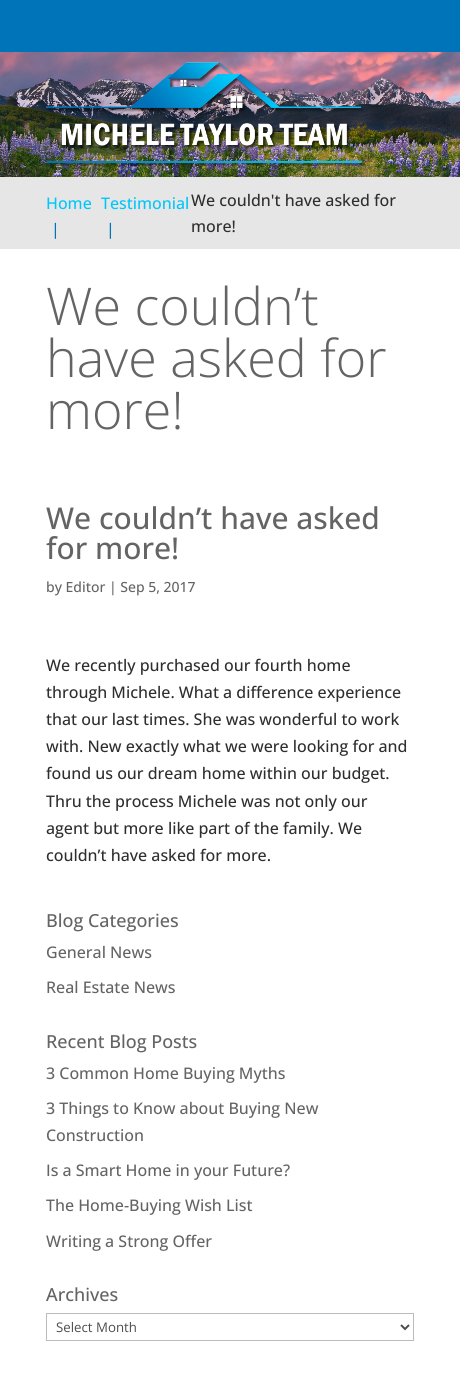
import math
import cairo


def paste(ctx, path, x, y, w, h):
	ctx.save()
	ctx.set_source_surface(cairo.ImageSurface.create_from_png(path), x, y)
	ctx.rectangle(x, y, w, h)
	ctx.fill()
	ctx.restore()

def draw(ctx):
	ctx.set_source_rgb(1, 1, 1)
	ctx.paint()
	ctx.set_source_rgb(0, 0.455, 0.725)
	ctx.rectangle(0, 0, 460, 52)
	ctx.fill()
	paste(ctx, 'media/1.png', 0, 52, 460, 125)
	paste(ctx, 'media/2.png', 46, 62, 319, 105)
	ctx.set_source_rgb(0.902, 0.902, 0.902)
	ctx.rectangle(0, 177, 460, 72)
	ctx.fill()
	ctx.select_font_face('Open Sans Medium')
	ctx.set_font_size(16)
	ctx.set_source_rgb(0, 0.776, 0.976)
	ctx.move_to(46, 209)
	ctx.show_text('Home')
	ctx.set_source_rgb(0, 0.455, 0.725)
	ctx.move_to(51, 235)
	ctx.show_text('|')
	ctx.set_source_rgb(0, 0.776, 0.976)
	ctx.move_to(101, 209)
	ctx.show_text('Testimonial')
	ctx.set_source_rgb(0, 0.455, 0.725)
	ctx.move_to(106, 235)
	ctx.show_text('|')
	ctx.set_source_rgb(0.18, 0.18, 0.18)
	ctx.move_to(191, 206)
	ctx.show_text('We couldn\'t have asked for')
	ctx.move_to(191, 232)
	ctx.show_text('more!')
	ctx.select_font_face('Open Sans Light')
	ctx.set_font_size(52)
	ctx.set_source_rgb(0.392, 0.392, 0.392)
	for x, y, s in [
		(46, 325, 'We couldn’t'),
		(46, 377, 'have asked for'),
		(46, 429, 'more!'),
	]:
		ctx.move_to(x, y)
		ctx.show_text(s)
	ctx.select_font_face('Open Sans Medium')
	ctx.set_font_size(30)
	ctx.move_to(46, 529)
	ctx.show_text('We couldn’t have asked')
	ctx.move_to(46, 559)
	ctx.show_text('for more!')
	ctx.set_font_size(14)
	ctx.move_to(46, 592)
	ctx.show_text('by Editor | Sep 5, 2017')
	ctx.set_font_size(16)
	ctx.set_source_rgb(0.18, 0.18, 0.18)
	for x, y, s in [
		(46, 671, 'We recently purchased our fourth home'),
		(46, 698, 'through Michele. What a difference experience'),
		(46, 725, 'that our last times. She was wonderful to work'),
		(46, 752, 'with. New exactly what we were looking for and'),
		(46, 779, 'found us our dream home within our budget.'),
		(46, 807, 'Thru the process Michele was not only our'),
		(46, 834, 'agent but more like part of the family. We'),
		(46, 861, 'couldn’t have asked for more.'),
	]:
		ctx.move_to(x, y)
		ctx.show_text(s)
	ctx.set_font_size(18)
	ctx.set_source_rgb(0.392, 0.392, 0.392)
	ctx.move_to(46, 927)
	ctx.show_text('Blog Categories')
	ctx.set_font_size(16)
	ctx.move_to(46, 958)
	ctx.show_text('General News')
	ctx.move_to(46, 993)
	ctx.show_text('Real Estate News')
	ctx.set_font_size(18)
	ctx.move_to(46, 1048)
	ctx.show_text('Recent Blog Posts')
	ctx.set_font_size(16)
	for x, y, s in [
		(46, 1079, '3 Common Home Buying Myths'),
		(46, 1114, '3 Things to Know about Buying New'),
		(46, 1141, 'Construction'),
		(46, 1176, 'Is a Smart Home in your Future?'),
		(46, 1211, 'The Home-Buying Wish List'),
		(46, 1247, 'Writing a Strong Offer'),
	]:
		ctx.move_to(x, y)
		ctx.show_text(s)
	ctx.set_font_size(18)
	ctx.move_to(46, 1301)
	ctx.show_text('Archives')
	ctx.rectangle(46.5, 1313.5, 367, 27)
	ctx.set_source_rgb(0.733, 0.733, 0.733)
	ctx.set_line_width(1)
	ctx.stroke()
	ctx.new_path()
	ctx.move_to(401, 1325)
	ctx.line_to(405, 1329)
	ctx.line_to(409, 1325)
	ctx.set_source_rgb(0.306, 0.306, 0.306)
	ctx.set_line_width(2)
	ctx.stroke()
	ctx.select_font_face('Open Sans')
	ctx.set_font_size(13.25)
	ctx.move_to(56, 1332)
	ctx.show_text('Select Month')


surface = cairo.ImageSurface(cairo.FORMAT_RGB24, 460, 1383)
ctx = cairo.Context(surface)
options = cairo.FontOptions()
options.set_hint_metrics(cairo.HINT_METRICS_OFF)
options.set_hint_style(cairo.HINT_STYLE_NONE)
ctx.set_font_options(options)
ctx.set_miter_limit(4)
draw(ctx)
surface.write_to_png('image.png')
